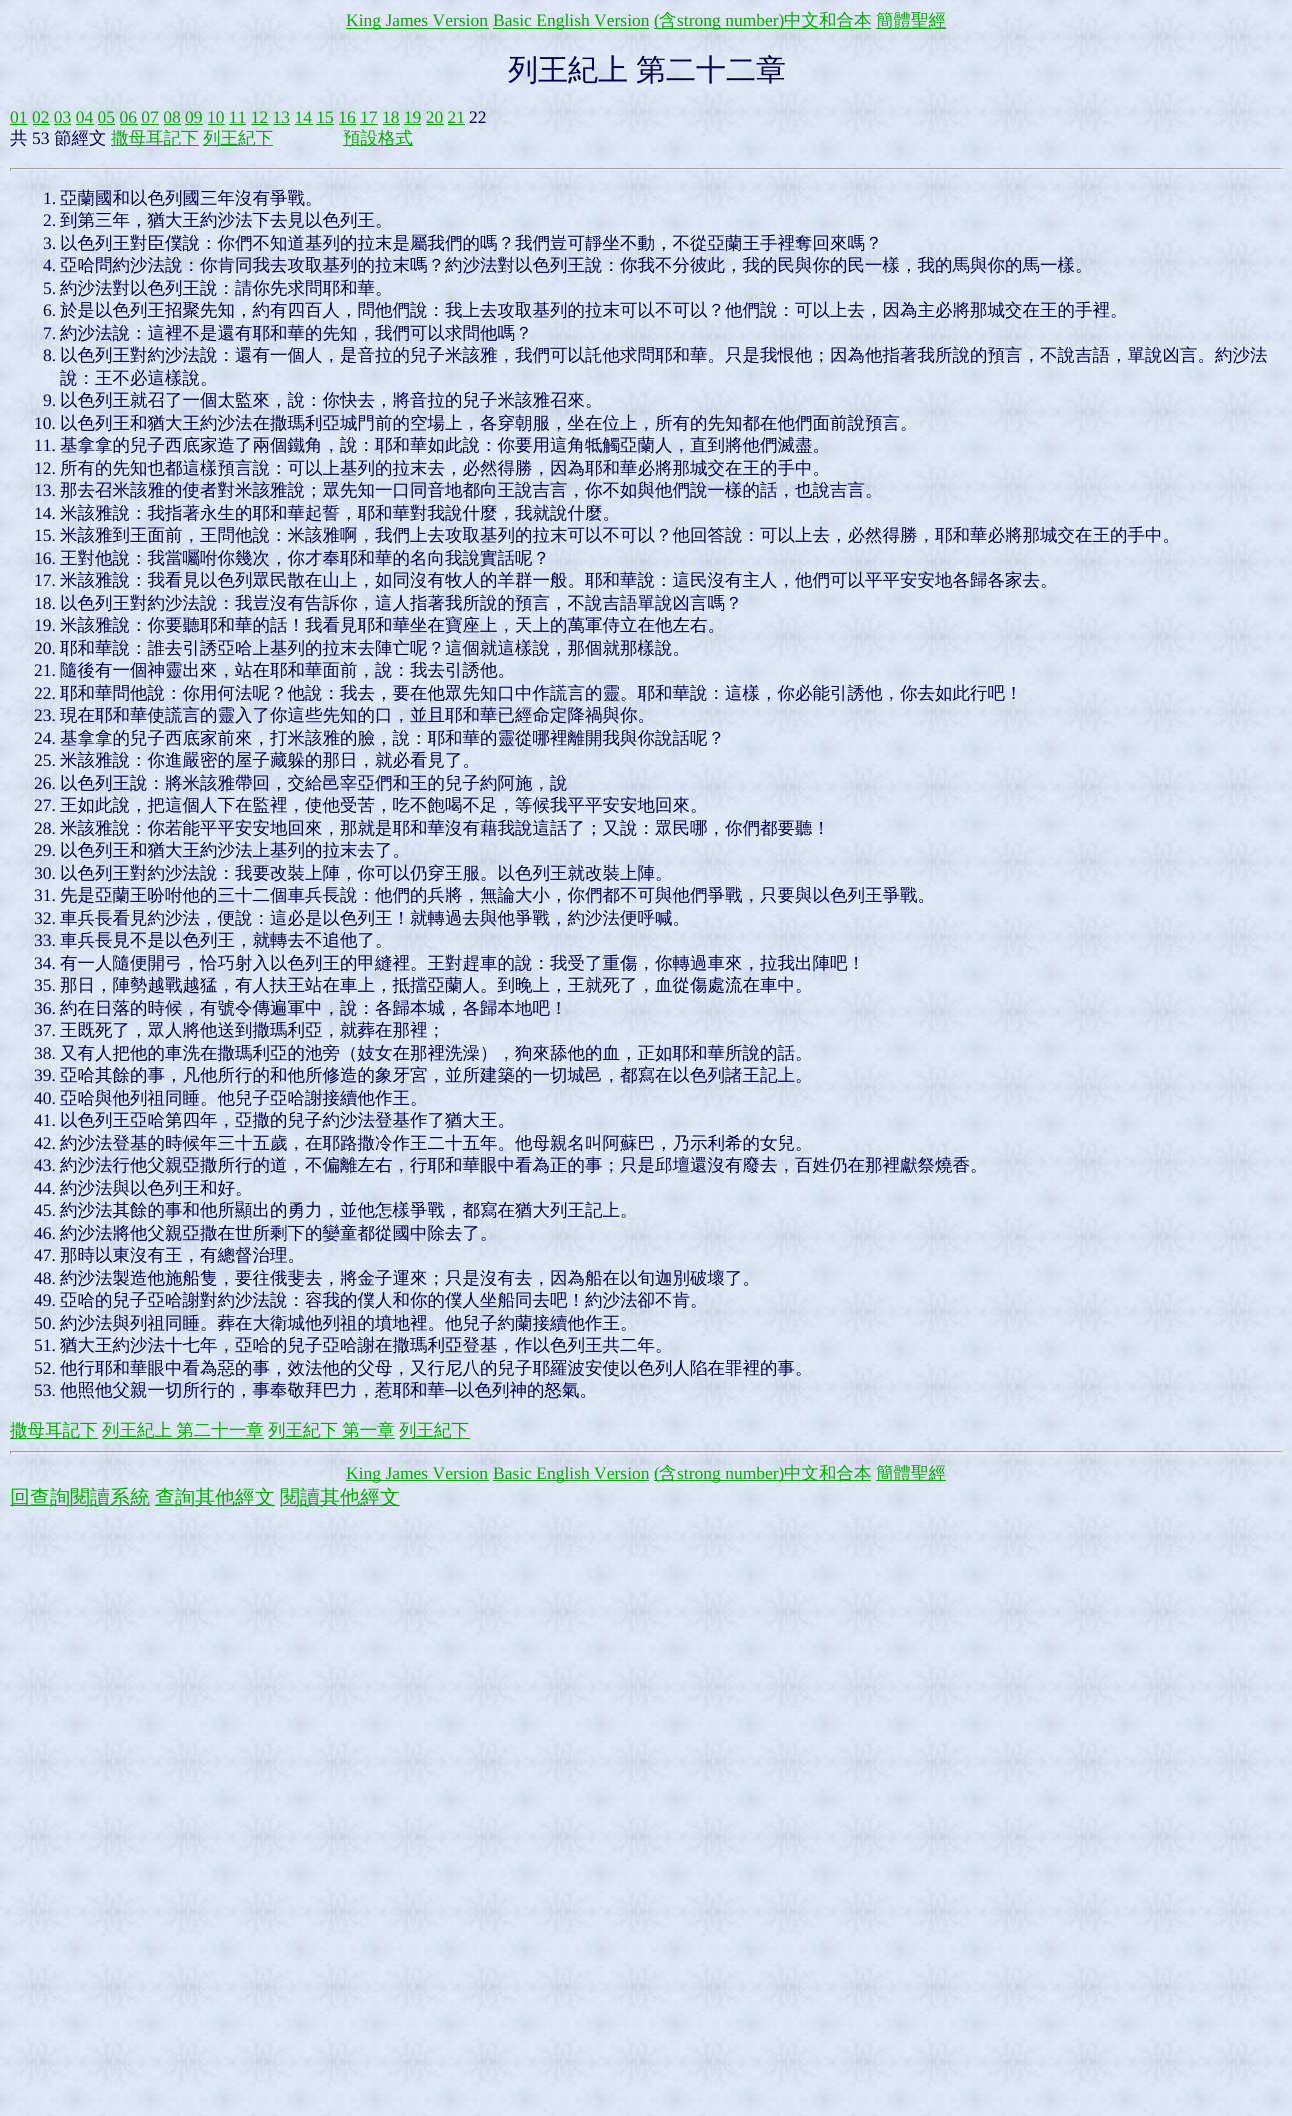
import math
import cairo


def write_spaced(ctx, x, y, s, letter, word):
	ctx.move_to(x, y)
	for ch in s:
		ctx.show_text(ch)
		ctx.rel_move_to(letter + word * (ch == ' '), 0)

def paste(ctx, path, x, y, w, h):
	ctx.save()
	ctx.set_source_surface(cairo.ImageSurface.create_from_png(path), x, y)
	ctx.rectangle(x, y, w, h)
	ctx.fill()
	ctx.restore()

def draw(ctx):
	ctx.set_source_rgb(1, 1, 1)
	ctx.paint()
	paste(ctx, 'media/1.png', 0, 0, 1292, 2116)
	ctx.set_source_rgb(0, 0.667, 0)
	ctx.rectangle(346, 28, 143, 1)
	ctx.fill()
	ctx.select_font_face('Liberation Serif')
	ctx.set_font_size(17.5)
	ctx.move_to(346, 26)
	ctx.show_text('King James Version')
	ctx.rectangle(493, 28, 156, 1)
	ctx.fill()
	ctx.move_to(493, 26)
	ctx.show_text('Basic English Version')
	ctx.rectangle(654, 28, 217, 1)
	ctx.fill()
	ctx.move_to(654, 26)
	ctx.show_text('(')
	ctx.select_font_face('WenQuanYi Zen Hei Medium')
	ctx.move_to(659, 26)
	ctx.show_text('含')
	ctx.select_font_face('Liberation Serif')
	ctx.move_to(677, 26)
	ctx.show_text('strong number)')
	ctx.select_font_face('WenQuanYi Zen Hei Medium')
	ctx.move_to(784, 26)
	ctx.show_text('中文和合本')
	ctx.rectangle(876, 28, 70, 1)
	ctx.fill()
	ctx.move_to(876, 26)
	ctx.show_text('簡體聖經')
	ctx.set_font_size(30)
	ctx.set_source_rgb(0, 0, 0.314)
	write_spaced(ctx, 508, 80, '列王紀上 第二十二章', 0, -1)
	ctx.select_font_face('Liberation Serif')
	ctx.set_font_size(17.5)
	ctx.set_source_rgb(0, 0.667, 0)
	ctx.move_to(10, 123)
	ctx.show_text('01 02 03 04 05 06 07 08 09 10 11 12 13 14 15 16 17 18 19 20 21')
	ctx.rectangle(10, 124, 18, 1)
	ctx.fill()
	ctx.set_source_rgb(0, 0, 0.314)
	ctx.move_to(469, 123)
	ctx.show_text('22')
	ctx.set_source_rgb(0, 0.667, 0)
	ctx.rectangle(33, 124, 17, 1)
	ctx.rectangle(54, 124, 17, 1)
	ctx.rectangle(76, 124, 18, 1)
	ctx.rectangle(98, 124, 17, 1)
	ctx.rectangle(120, 124, 18, 1)
	ctx.rectangle(141, 124, 18, 1)
	ctx.rectangle(164, 124, 17, 1)
	ctx.rectangle(185, 124, 18, 1)
	ctx.rectangle(208, 124, 17, 1)
	ctx.rectangle(229, 124, 17, 1)
	ctx.rectangle(251, 124, 18, 1)
	ctx.rectangle(273, 124, 17, 1)
	ctx.rectangle(295, 124, 18, 1)
	ctx.rectangle(316, 124, 18, 1)
	ctx.rectangle(339, 124, 17, 1)
	ctx.rectangle(360, 124, 18, 1)
	ctx.rectangle(383, 124, 17, 1)
	ctx.rectangle(404, 124, 17, 1)
	ctx.rectangle(426, 124, 18, 1)
	ctx.rectangle(448, 124, 17, 1)
	ctx.fill()
	ctx.select_font_face('WenQuanYi Zen Hei Medium')
	ctx.set_source_rgb(0, 0, 0.314)
	ctx.move_to(10, 144)
	ctx.show_text('共')
	ctx.select_font_face('Liberation Serif')
	ctx.move_to(32, 144)
	ctx.show_text('53')
	ctx.select_font_face('WenQuanYi Zen Hei Medium')
	ctx.move_to(54, 144)
	ctx.show_text('節經文')
	ctx.set_source_rgb(0, 0.667, 0)
	ctx.rectangle(111, 145, 88, 1)
	ctx.fill()
	ctx.move_to(111, 144)
	ctx.show_text('撒母耳記下')
	ctx.rectangle(203, 145, 70, 1)
	ctx.fill()
	ctx.move_to(203, 144)
	ctx.show_text('列王紀下')
	ctx.rectangle(343, 145, 70, 1)
	ctx.fill()
	ctx.move_to(343, 144)
	ctx.show_text('預設格式')
	ctx.set_source_rgb(0.624, 0.624, 0.624)
	ctx.rectangle(10, 168, 1273, 1)
	ctx.fill()
	ctx.set_source_rgb(0.933, 0.933, 0.933)
	ctx.rectangle(1281, 168, 1, 3)
	ctx.rectangle(10, 169, 1273, 1)
	ctx.fill()
	ctx.set_source_rgb(0.624, 0.624, 0.624)
	ctx.rectangle(10, 168, 1, 3)
	ctx.fill()
	ctx.select_font_face('Liberation Serif')
	ctx.set_source_rgb(0, 0, 0.314)
	ctx.move_to(43, 204)
	ctx.show_text('1.')
	ctx.select_font_face('WenQuanYi Zen Hei Medium')
	ctx.move_to(60, 204)
	ctx.show_text('亞蘭國和以色列國三年沒有爭戰。')
	ctx.select_font_face('Liberation Serif')
	ctx.move_to(43, 226)
	ctx.show_text('2.')
	ctx.select_font_face('WenQuanYi Zen Hei Medium')
	ctx.move_to(60, 226)
	ctx.show_text('到第三年，猶大王約沙法下去見以色列王。')
	ctx.select_font_face('Liberation Serif')
	ctx.move_to(43, 249)
	ctx.show_text('3.')
	ctx.select_font_face('WenQuanYi Zen Hei Medium')
	ctx.move_to(60, 249)
	ctx.show_text('以色列王對臣僕說：你們不知道基列的拉末是屬我們的嗎？我們豈可靜坐不動，不從亞蘭王手裡奪回來嗎？')
	ctx.select_font_face('Liberation Serif')
	ctx.move_to(43, 271)
	ctx.show_text('4.')
	ctx.select_font_face('WenQuanYi Zen Hei Medium')
	ctx.move_to(60, 271)
	ctx.show_text('亞哈問約沙法說：你肯同我去攻取基列的拉末嗎？約沙法對以色列王說：你我不分彼此，我的民與你的民一樣，我的馬與你的馬一樣。')
	ctx.select_font_face('Liberation Serif')
	ctx.move_to(43, 294)
	ctx.show_text('5.')
	ctx.select_font_face('WenQuanYi Zen Hei Medium')
	ctx.move_to(60, 294)
	ctx.show_text('約沙法對以色列王說：請你先求問耶和華。')
	ctx.select_font_face('Liberation Serif')
	ctx.move_to(43, 316)
	ctx.show_text('6.')
	ctx.select_font_face('WenQuanYi Zen Hei Medium')
	ctx.move_to(60, 316)
	ctx.show_text('於是以色列王招聚先知，約有四百人，問他們說：我上去攻取基列的拉末可以不可以？他們說：可以上去，因為主必將那城交在王的手裡。')
	ctx.select_font_face('Liberation Serif')
	ctx.move_to(43, 339)
	ctx.show_text('7.')
	ctx.select_font_face('WenQuanYi Zen Hei Medium')
	ctx.move_to(60, 339)
	ctx.show_text('約沙法說：這裡不是還有耶和華的先知，我們可以求問他嗎？')
	ctx.select_font_face('Liberation Serif')
	ctx.move_to(43, 361)
	ctx.show_text('8.')
	ctx.select_font_face('WenQuanYi Zen Hei Medium')
	ctx.move_to(60, 361)
	ctx.show_text('以色列王對約沙法說：還有一個人，是音拉的兒子米該雅，我們可以託他求問耶和華。只是我恨他；因為他指著我所說的預言，不說吉語，單說凶言。約沙法')
	ctx.move_to(60, 384)
	ctx.show_text('說：王不必這樣說。')
	ctx.select_font_face('Liberation Serif')
	ctx.move_to(43, 406)
	ctx.show_text('9.')
	ctx.select_font_face('WenQuanYi Zen Hei Medium')
	ctx.move_to(60, 406)
	ctx.show_text('以色列王就召了一個太監來，說：你快去，將音拉的兒子米該雅召來。')
	ctx.select_font_face('Liberation Serif')
	ctx.move_to(34, 429)
	ctx.show_text('10.')
	ctx.select_font_face('WenQuanYi Zen Hei Medium')
	ctx.move_to(60, 429)
	ctx.show_text('以色列王和猶大王約沙法在撒瑪利亞城門前的空場上，各穿朝服，坐在位上，所有的先知都在他們面前說預言。')
	ctx.select_font_face('Liberation Serif')
	ctx.move_to(34, 451)
	ctx.show_text('11.')
	ctx.select_font_face('WenQuanYi Zen Hei Medium')
	ctx.move_to(60, 451)
	ctx.show_text('基拿拿的兒子西底家造了兩個鐵角，說：耶和華如此說：你要用這角牴觸亞蘭人，直到將他們滅盡。')
	ctx.select_font_face('Liberation Serif')
	ctx.move_to(34, 474)
	ctx.show_text('12.')
	ctx.select_font_face('WenQuanYi Zen Hei Medium')
	ctx.move_to(60, 474)
	ctx.show_text('所有的先知也都這樣預言說：可以上基列的拉末去，必然得勝，因為耶和華必將那城交在王的手中。')
	ctx.select_font_face('Liberation Serif')
	ctx.move_to(34, 496)
	ctx.show_text('13.')
	ctx.select_font_face('WenQuanYi Zen Hei Medium')
	ctx.move_to(60, 496)
	ctx.show_text('那去召米該雅的使者對米該雅說；眾先知一口同音地都向王說吉言，你不如與他們說一樣的話，也說吉言。')
	ctx.select_font_face('Liberation Serif')
	ctx.move_to(34, 519)
	ctx.show_text('14.')
	ctx.select_font_face('WenQuanYi Zen Hei Medium')
	ctx.move_to(60, 519)
	ctx.show_text('米該雅說：我指著永生的耶和華起誓，耶和華對我說什麼，我就說什麼。')
	ctx.select_font_face('Liberation Serif')
	ctx.move_to(34, 541)
	ctx.show_text('15.')
	ctx.select_font_face('WenQuanYi Zen Hei Medium')
	ctx.move_to(60, 541)
	ctx.show_text('米該雅到王面前，王問他說：米該雅啊，我們上去攻取基列的拉末可以不可以？他回答說：可以上去，必然得勝，耶和華必將那城交在王的手中。')
	ctx.select_font_face('Liberation Serif')
	ctx.move_to(34, 564)
	ctx.show_text('16.')
	ctx.select_font_face('WenQuanYi Zen Hei Medium')
	ctx.move_to(60, 564)
	ctx.show_text('王對他說：我當囑咐你幾次，你才奉耶和華的名向我說實話呢？')
	ctx.select_font_face('Liberation Serif')
	ctx.move_to(34, 586)
	ctx.show_text('17.')
	ctx.select_font_face('WenQuanYi Zen Hei Medium')
	ctx.move_to(60, 586)
	ctx.show_text('米該雅說：我看見以色列眾民散在山上，如同沒有牧人的羊群一般。耶和華說：這民沒有主人，他們可以平平安安地各歸各家去。')
	ctx.select_font_face('Liberation Serif')
	ctx.move_to(34, 609)
	ctx.show_text('18.')
	ctx.select_font_face('WenQuanYi Zen Hei Medium')
	ctx.move_to(60, 609)
	ctx.show_text('以色列王對約沙法說：我豈沒有告訴你，這人指著我所說的預言，不說吉語單說凶言嗎？')
	ctx.select_font_face('Liberation Serif')
	ctx.move_to(34, 631)
	ctx.show_text('19.')
	ctx.select_font_face('WenQuanYi Zen Hei Medium')
	ctx.move_to(60, 631)
	ctx.show_text('米該雅說：你要聽耶和華的話！我看見耶和華坐在寶座上，天上的萬軍侍立在他左右。')
	ctx.select_font_face('Liberation Serif')
	ctx.move_to(34, 654)
	ctx.show_text('20.')
	ctx.select_font_face('WenQuanYi Zen Hei Medium')
	ctx.move_to(60, 654)
	ctx.show_text('耶和華說：誰去引誘亞哈上基列的拉末去陣亡呢？這個就這樣說，那個就那樣說。')
	ctx.select_font_face('Liberation Serif')
	ctx.move_to(34, 676)
	ctx.show_text('21.')
	ctx.select_font_face('WenQuanYi Zen Hei Medium')
	ctx.move_to(60, 676)
	ctx.show_text('隨後有一個神靈出來，站在耶和華面前，說：我去引誘他。')
	ctx.select_font_face('Liberation Serif')
	ctx.move_to(34, 699)
	ctx.show_text('22.')
	ctx.select_font_face('WenQuanYi Zen Hei Medium')
	ctx.move_to(60, 699)
	ctx.show_text('耶和華問他說：你用何法呢？他說：我去，要在他眾先知口中作謊言的靈。耶和華說：這樣，你必能引誘他，你去如此行吧！')
	ctx.select_font_face('Liberation Serif')
	ctx.move_to(34, 721)
	ctx.show_text('23.')
	ctx.select_font_face('WenQuanYi Zen Hei Medium')
	ctx.move_to(60, 721)
	ctx.show_text('現在耶和華使謊言的靈入了你這些先知的口，並且耶和華已經命定降禍與你。')
	ctx.select_font_face('Liberation Serif')
	ctx.move_to(34, 744)
	ctx.show_text('24.')
	ctx.select_font_face('WenQuanYi Zen Hei Medium')
	ctx.move_to(60, 744)
	ctx.show_text('基拿拿的兒子西底家前來，打米該雅的臉，說：耶和華的靈從哪裡離開我與你說話呢？')
	ctx.select_font_face('Liberation Serif')
	ctx.move_to(34, 766)
	ctx.show_text('25.')
	ctx.select_font_face('WenQuanYi Zen Hei Medium')
	ctx.move_to(60, 766)
	ctx.show_text('米該雅說：你進嚴密的屋子藏躲的那日，就必看見了。')
	ctx.select_font_face('Liberation Serif')
	ctx.move_to(34, 789)
	ctx.show_text('26.')
	ctx.select_font_face('WenQuanYi Zen Hei Medium')
	ctx.move_to(60, 789)
	ctx.show_text('以色列王說：將米該雅帶回，交給邑宰亞們和王的兒子約阿施，說')
	ctx.select_font_face('Liberation Serif')
	ctx.move_to(34, 811)
	ctx.show_text('27.')
	ctx.select_font_face('WenQuanYi Zen Hei Medium')
	ctx.move_to(60, 811)
	ctx.show_text('王如此說，把這個人下在監裡，使他受苦，吃不飽喝不足，等候我平平安安地回來。')
	ctx.select_font_face('Liberation Serif')
	ctx.move_to(34, 834)
	ctx.show_text('28.')
	ctx.select_font_face('WenQuanYi Zen Hei Medium')
	ctx.move_to(60, 834)
	ctx.show_text('米該雅說：你若能平平安安地回來，那就是耶和華沒有藉我說這話了；又說：眾民哪，你們都要聽！')
	ctx.select_font_face('Liberation Serif')
	ctx.move_to(34, 856)
	ctx.show_text('29.')
	ctx.select_font_face('WenQuanYi Zen Hei Medium')
	ctx.move_to(60, 856)
	ctx.show_text('以色列王和猶大王約沙法上基列的拉末去了。')
	ctx.select_font_face('Liberation Serif')
	ctx.move_to(34, 879)
	ctx.show_text('30.')
	ctx.select_font_face('WenQuanYi Zen Hei Medium')
	ctx.move_to(60, 879)
	ctx.show_text('以色列王對約沙法說：我要改裝上陣，你可以仍穿王服。以色列王就改裝上陣。')
	ctx.select_font_face('Liberation Serif')
	ctx.move_to(34, 901)
	ctx.show_text('31.')
	ctx.select_font_face('WenQuanYi Zen Hei Medium')
	ctx.move_to(60, 901)
	ctx.show_text('先是亞蘭王吩咐他的三十二個車兵長說：他們的兵將，無論大小，你們都不可與他們爭戰，只要與以色列王爭戰。')
	ctx.select_font_face('Liberation Serif')
	ctx.move_to(34, 924)
	ctx.show_text('32.')
	ctx.select_font_face('WenQuanYi Zen Hei Medium')
	ctx.move_to(60, 924)
	ctx.show_text('車兵長看見約沙法，便說：這必是以色列王！就轉過去與他爭戰，約沙法便呼喊。')
	ctx.select_font_face('Liberation Serif')
	ctx.move_to(34, 946)
	ctx.show_text('33.')
	ctx.select_font_face('WenQuanYi Zen Hei Medium')
	ctx.move_to(60, 946)
	ctx.show_text('車兵長見不是以色列王，就轉去不追他了。')
	ctx.select_font_face('Liberation Serif')
	ctx.move_to(34, 969)
	ctx.show_text('34.')
	ctx.select_font_face('WenQuanYi Zen Hei Medium')
	ctx.move_to(60, 969)
	ctx.show_text('有一人隨便開弓，恰巧射入以色列王的甲縫裡。王對趕車的說：我受了重傷，你轉過車來，拉我出陣吧！')
	ctx.select_font_face('Liberation Serif')
	ctx.move_to(34, 991)
	ctx.show_text('35.')
	ctx.select_font_face('WenQuanYi Zen Hei Medium')
	ctx.move_to(60, 991)
	ctx.show_text('那日，陣勢越戰越猛，有人扶王站在車上，抵擋亞蘭人。到晚上，王就死了，血從傷處流在車中。')
	ctx.select_font_face('Liberation Serif')
	ctx.move_to(34, 1014)
	ctx.show_text('36.')
	ctx.select_font_face('WenQuanYi Zen Hei Medium')
	ctx.move_to(60, 1014)
	ctx.show_text('約在日落的時候，有號令傳遍軍中，說：各歸本城，各歸本地吧！')
	ctx.select_font_face('Liberation Serif')
	ctx.move_to(34, 1036)
	ctx.show_text('37.')
	ctx.select_font_face('WenQuanYi Zen Hei Medium')
	ctx.move_to(60, 1036)
	ctx.show_text('王既死了，眾人將他送到撒瑪利亞，就葬在那裡；')
	ctx.select_font_face('Liberation Serif')
	ctx.move_to(34, 1059)
	ctx.show_text('38.')
	ctx.select_font_face('WenQuanYi Zen Hei Medium')
	ctx.move_to(60, 1059)
	ctx.show_text('又有人把他的車洗在撒瑪利亞的池旁（妓女在那裡洗澡），狗來舔他的血，正如耶和華所說的話。')
	ctx.select_font_face('Liberation Serif')
	ctx.move_to(34, 1081)
	ctx.show_text('39.')
	ctx.select_font_face('WenQuanYi Zen Hei Medium')
	ctx.move_to(60, 1081)
	ctx.show_text('亞哈其餘的事，凡他所行的和他所修造的象牙宮，並所建築的一切城邑，都寫在以色列諸王記上。')
	ctx.select_font_face('Liberation Serif')
	ctx.move_to(34, 1104)
	ctx.show_text('40.')
	ctx.select_font_face('WenQuanYi Zen Hei Medium')
	ctx.move_to(60, 1104)
	ctx.show_text('亞哈與他列祖同睡。他兒子亞哈謝接續他作王。')
	ctx.select_font_face('Liberation Serif')
	ctx.move_to(34, 1126)
	ctx.show_text('41.')
	ctx.select_font_face('WenQuanYi Zen Hei Medium')
	ctx.move_to(60, 1126)
	ctx.show_text('以色列王亞哈第四年，亞撒的兒子約沙法登基作了猶大王。')
	ctx.select_font_face('Liberation Serif')
	ctx.move_to(34, 1149)
	ctx.show_text('42.')
	ctx.select_font_face('WenQuanYi Zen Hei Medium')
	ctx.move_to(60, 1149)
	ctx.show_text('約沙法登基的時候年三十五歲，在耶路撒冷作王二十五年。他母親名叫阿蘇巴，乃示利希的女兒。')
	ctx.select_font_face('Liberation Serif')
	ctx.move_to(34, 1171)
	ctx.show_text('43.')
	ctx.select_font_face('WenQuanYi Zen Hei Medium')
	ctx.move_to(60, 1171)
	ctx.show_text('約沙法行他父親亞撒所行的道，不偏離左右，行耶和華眼中看為正的事；只是邱壇還沒有廢去，百姓仍在那裡獻祭燒香。')
	ctx.select_font_face('Liberation Serif')
	ctx.move_to(34, 1194)
	ctx.show_text('44.')
	ctx.select_font_face('WenQuanYi Zen Hei Medium')
	ctx.move_to(60, 1194)
	ctx.show_text('約沙法與以色列王和好。')
	ctx.select_font_face('Liberation Serif')
	ctx.move_to(34, 1216)
	ctx.show_text('45.')
	ctx.select_font_face('WenQuanYi Zen Hei Medium')
	ctx.move_to(60, 1216)
	ctx.show_text('約沙法其餘的事和他所顯出的勇力，並他怎樣爭戰，都寫在猶大列王記上。')
	ctx.select_font_face('Liberation Serif')
	ctx.move_to(34, 1239)
	ctx.show_text('46.')
	ctx.select_font_face('WenQuanYi Zen Hei Medium')
	ctx.move_to(60, 1239)
	ctx.show_text('約沙法將他父親亞撒在世所剩下的孌童都從國中除去了。')
	ctx.select_font_face('Liberation Serif')
	ctx.move_to(34, 1261)
	ctx.show_text('47.')
	ctx.select_font_face('WenQuanYi Zen Hei Medium')
	ctx.move_to(60, 1261)
	ctx.show_text('那時以東沒有王，有總督治理。')
	ctx.select_font_face('Liberation Serif')
	ctx.move_to(34, 1284)
	ctx.show_text('48.')
	ctx.select_font_face('WenQuanYi Zen Hei Medium')
	ctx.move_to(60, 1284)
	ctx.show_text('約沙法製造他施船隻，要往俄斐去，將金子運來；只是沒有去，因為船在以旬迦別破壞了。')
	ctx.select_font_face('Liberation Serif')
	ctx.move_to(34, 1306)
	ctx.show_text('49.')
	ctx.select_font_face('WenQuanYi Zen Hei Medium')
	ctx.move_to(60, 1306)
	ctx.show_text('亞哈的兒子亞哈謝對約沙法說：容我的僕人和你的僕人坐船同去吧！約沙法卻不肯。')
	ctx.select_font_face('Liberation Serif')
	ctx.move_to(34, 1329)
	ctx.show_text('50.')
	ctx.select_font_face('WenQuanYi Zen Hei Medium')
	ctx.move_to(60, 1329)
	ctx.show_text('約沙法與列祖同睡。葬在大衛城他列祖的墳地裡。他兒子約蘭接續他作王。')
	ctx.select_font_face('Liberation Serif')
	ctx.move_to(34, 1351)
	ctx.show_text('51.')
	ctx.select_font_face('WenQuanYi Zen Hei Medium')
	ctx.move_to(60, 1351)
	ctx.show_text('猶大王約沙法十七年，亞哈的兒子亞哈謝在撒瑪利亞登基，作以色列王共二年。')
	ctx.select_font_face('Liberation Serif')
	ctx.move_to(34, 1374)
	ctx.show_text('52.')
	ctx.select_font_face('WenQuanYi Zen Hei Medium')
	ctx.move_to(60, 1374)
	ctx.show_text('他行耶和華眼中看為惡的事，效法他的父母，又行尼八的兒子耶羅波安使以色列人陷在罪裡的事。')
	ctx.select_font_face('Liberation Serif')
	ctx.move_to(34, 1396)
	ctx.show_text('53.')
	ctx.select_font_face('WenQuanYi Zen Hei Medium')
	ctx.move_to(60, 1396)
	ctx.show_text('他照他父親一切所行的，事奉敬拜巴力，惹耶和華')
	ctx.select_font_face('Liberation Serif')
	ctx.move_to(445, 1396)
	ctx.show_text('─')
	ctx.select_font_face('WenQuanYi Zen Hei Medium')
	ctx.move_to(457, 1396)
	ctx.show_text('以色列神的怒氣。')
	ctx.set_source_rgb(0, 0.667, 0)
	ctx.rectangle(10, 1438, 88, 1)
	ctx.fill()
	ctx.move_to(10, 1436)
	ctx.show_text('撒母耳記下')
	ctx.rectangle(103, 1438, 161, 1)
	ctx.fill()
	write_spaced(ctx, 102, 1436, '列王紀上 第二十一章', 0, -1)
	ctx.rectangle(269, 1438, 126, 1)
	ctx.fill()
	write_spaced(ctx, 268, 1436, '列王紀下 第一章', 0, -1)
	ctx.rectangle(400, 1438, 70, 1)
	ctx.fill()
	ctx.move_to(399, 1436)
	ctx.show_text('列王紀下')
	ctx.set_source_rgb(0.624, 0.624, 0.624)
	ctx.rectangle(10, 1451, 1273, 1)
	ctx.fill()
	ctx.set_source_rgb(0.933, 0.933, 0.933)
	ctx.rectangle(1281, 1451, 1, 3)
	ctx.rectangle(10, 1453, 1273, 1)
	ctx.fill()
	ctx.set_source_rgb(0.624, 0.624, 0.624)
	ctx.rectangle(10, 1451, 1, 3)
	ctx.fill()
	ctx.set_source_rgb(0, 0.667, 0)
	ctx.rectangle(346, 1480, 143, 1)
	ctx.fill()
	ctx.select_font_face('Liberation Serif')
	ctx.move_to(346, 1479)
	ctx.show_text('King James Version')
	ctx.rectangle(493, 1480, 156, 1)
	ctx.fill()
	ctx.move_to(493, 1479)
	ctx.show_text('Basic English Version')
	ctx.rectangle(654, 1480, 217, 1)
	ctx.fill()
	ctx.move_to(654, 1479)
	ctx.show_text('(')
	ctx.select_font_face('WenQuanYi Zen Hei Medium')
	ctx.move_to(659, 1479)
	ctx.show_text('含')
	ctx.select_font_face('Liberation Serif')
	ctx.move_to(677, 1479)
	ctx.show_text('strong number)')
	ctx.select_font_face('WenQuanYi Zen Hei Medium')
	ctx.move_to(784, 1479)
	ctx.show_text('中文和合本')
	ctx.rectangle(876, 1480, 70, 1)
	ctx.fill()
	ctx.move_to(876, 1479)
	ctx.show_text('簡體聖經')
	ctx.rectangle(10, 1505, 140, 1)
	ctx.fill()
	ctx.set_font_size(20)
	ctx.move_to(10, 1504)
	ctx.show_text('回查詢閱讀系統')
	ctx.rectangle(155, 1505, 120, 1)
	ctx.fill()
	ctx.move_to(155, 1504)
	ctx.show_text('查詢其他經文')
	ctx.rectangle(280, 1505, 120, 1)
	ctx.fill()
	ctx.move_to(280, 1504)
	ctx.show_text('閱讀其他經文')


surface = cairo.ImageSurface(cairo.FORMAT_RGB24, 1292, 2116)
ctx = cairo.Context(surface)
options = cairo.FontOptions()
options.set_hint_metrics(cairo.HINT_METRICS_OFF)
options.set_hint_style(cairo.HINT_STYLE_NONE)
ctx.set_font_options(options)
ctx.set_miter_limit(4)
draw(ctx)
surface.write_to_png('image.png')
